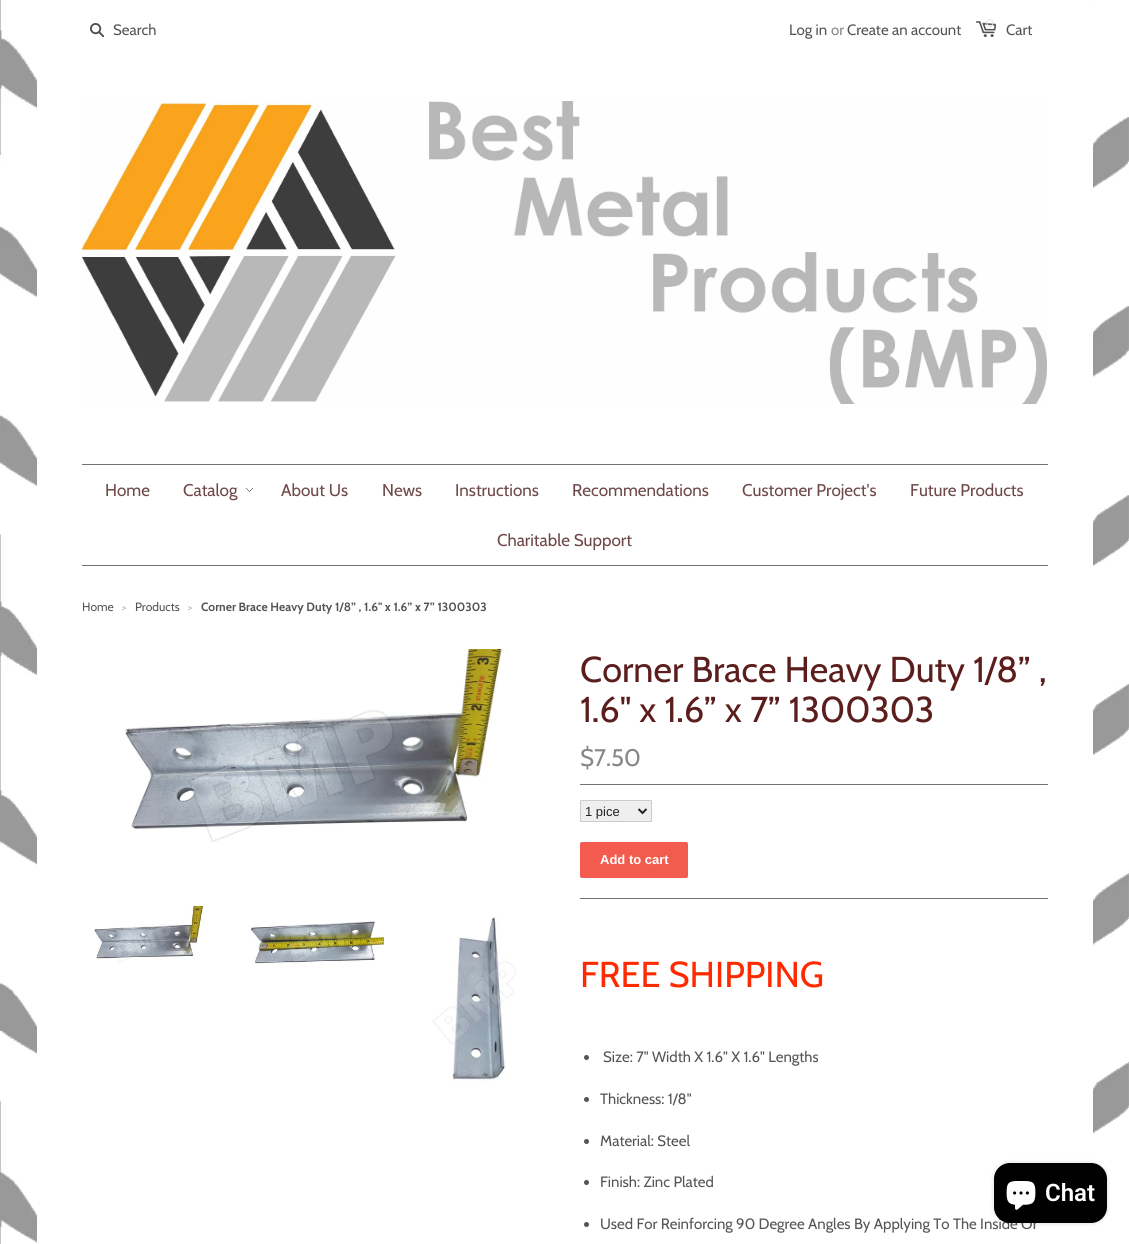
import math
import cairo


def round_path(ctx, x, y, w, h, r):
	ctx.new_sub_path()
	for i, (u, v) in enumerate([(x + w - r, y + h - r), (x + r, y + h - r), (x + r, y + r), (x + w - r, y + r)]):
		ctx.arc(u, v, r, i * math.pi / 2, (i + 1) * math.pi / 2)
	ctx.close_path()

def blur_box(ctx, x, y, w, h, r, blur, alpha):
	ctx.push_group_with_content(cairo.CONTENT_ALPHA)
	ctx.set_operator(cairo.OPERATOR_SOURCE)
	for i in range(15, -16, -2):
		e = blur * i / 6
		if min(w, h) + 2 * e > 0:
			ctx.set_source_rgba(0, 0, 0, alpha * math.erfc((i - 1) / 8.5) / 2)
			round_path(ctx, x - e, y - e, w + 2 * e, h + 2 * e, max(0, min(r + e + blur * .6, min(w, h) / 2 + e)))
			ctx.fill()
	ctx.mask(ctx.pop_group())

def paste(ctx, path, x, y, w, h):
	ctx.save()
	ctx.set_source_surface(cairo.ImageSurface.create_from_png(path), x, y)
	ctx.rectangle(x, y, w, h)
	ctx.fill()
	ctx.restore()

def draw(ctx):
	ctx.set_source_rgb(1, 1, 1)
	ctx.paint()
	paste(ctx, 'media/1.png', 0, 0, 1129, 1244)
	ctx.set_source_rgb(1, 1, 1)
	ctx.rectangle(45, 0, 1045, 61)
	ctx.fill()
	paste(ctx, 'media/2.png', 90, 23, 14, 14)
	ctx.select_font_face('Cabin')
	ctx.set_font_size(15)
	ctx.set_source_rgb(0.333, 0.333, 0.333)
	ctx.move_to(113, 35)
	ctx.show_text('Search')
	ctx.move_to(789, 35)
	ctx.show_text('Log in')
	ctx.set_source_rgb(0.533, 0.533, 0.533)
	ctx.move_to(831, 35)
	ctx.show_text('or')
	ctx.set_source_rgb(0.333, 0.333, 0.333)
	ctx.move_to(847, 35)
	ctx.show_text('Create an account')
	paste(ctx, 'media/3.png', 976, 21, 20, 16)
	ctx.set_font_size(11)
	ctx.set_source_rgb(0.89, 0.886, 0.886)
	ctx.move_to(986, 27)
	ctx.show_text('0')
	ctx.set_font_size(15)
	ctx.set_source_rgb(0.333, 0.333, 0.333)
	ctx.move_to(1006, 35)
	ctx.show_text('Cart')
	ctx.set_source_rgb(1, 1, 1)
	ctx.rectangle(37, 61, 1056, 1183)
	ctx.fill()
	paste(ctx, 'media/4.png', 82, 101, 965, 303)
	ctx.set_source_rgb(0.447, 0.447, 0.447)
	ctx.rectangle(82, 464, 966, 1)
	ctx.fill()
	ctx.rectangle(82, 565, 966, 1)
	ctx.fill()
	ctx.set_font_size(17)
	ctx.set_source_rgb(0.435, 0.286, 0.286)
	ctx.move_to(105, 496)
	ctx.show_text('Home')
	paste(ctx, 'media/5.png', 246, 488, 7, 4)
	for x, y, s in [
		(183, 496, 'Catalog'),
		(281, 496, 'About Us'),
		(382, 496, 'News'),
		(455, 496, 'Instructions'),
		(572, 496, 'Recommendations'),
		(742, 496, 'Customer Project\'s'),
		(910, 496, 'Future Products'),
		(497, 546, 'Charitable Support'),
	]:
		ctx.move_to(x, y)
		ctx.show_text(s)
	ctx.set_font_size(12)
	ctx.set_source_rgb(0.333, 0.333, 0.333)
	ctx.move_to(82, 611)
	ctx.show_text('Home')
	ctx.set_font_size(10)
	ctx.set_source_rgb(0.667, 0.667, 0.667)
	ctx.move_to(122, 611)
	ctx.show_text('>')
	ctx.set_font_size(12)
	ctx.set_source_rgb(0.333, 0.333, 0.333)
	ctx.move_to(135, 611)
	ctx.show_text('Products')
	ctx.set_font_size(10)
	ctx.set_source_rgb(0.667, 0.667, 0.667)
	ctx.move_to(188, 611)
	ctx.show_text('>')
	ctx.select_font_face('Cabin', cairo.FONT_SLANT_NORMAL, cairo.FONT_WEIGHT_BOLD)
	ctx.set_font_size(12)
	ctx.set_source_rgb(0.333, 0.333, 0.333)
	ctx.move_to(201, 611)
	ctx.show_text('Corner Brace Heavy Duty 1/8” , 1.6" x 1.6” x 7” 1300303')
	paste(ctx, 'media/6.png', 125, 649, 377, 193)
	paste(ctx, 'media/7.png', 94, 906, 110, 56)
	paste(ctx, 'media/8.png', 250, 921, 134, 43)
	paste(ctx, 'media/9.png', 432, 917, 84, 164)
	ctx.select_font_face('Cabin')
	ctx.set_font_size(36)
	ctx.set_source_rgb(0.361, 0.114, 0.114)
	ctx.move_to(580, 682)
	ctx.show_text('Corner Brace Heavy Duty 1/8” ,')
	ctx.move_to(580, 722)
	ctx.show_text('1.6" x 1.6” x 7” 1300303')
	ctx.set_font_size(24)
	ctx.set_source_rgb(0.533, 0.533, 0.533)
	ctx.move_to(580, 766)
	ctx.show_text('$7.50')
	ctx.set_source_rgb(0.447, 0.447, 0.447)
	ctx.rectangle(580, 784, 468, 1)
	ctx.fill()
	ctx.rectangle(580, 898, 468, 1)
	ctx.fill()
	ctx.set_source_rgb(0.937, 0.937, 0.937)
	round_path(ctx, 580.5, 800.5, 71, 21, 0.5)
	ctx.fill_preserve()
	ctx.set_source_rgb(0.8, 0.8, 0.8)
	ctx.set_line_width(1)
	ctx.stroke()
	ctx.new_path()
	ctx.move_to(638.5, 809)
	ctx.line_to(642.5, 813)
	ctx.line_to(646.5, 809)
	ctx.set_source_rgb(0.133, 0.133, 0.133)
	ctx.set_line_width(2)
	ctx.stroke()
	ctx.select_font_face('Liberation Sans')
	ctx.set_font_size(13)
	ctx.move_to(585, 816)
	ctx.show_text('1 pice')
	ctx.set_source_rgb(0.957, 0.357, 0.31)
	round_path(ctx, 580, 842, 108, 36, 2)
	ctx.fill()
	ctx.select_font_face('Liberation Sans', cairo.FONT_SLANT_NORMAL, cairo.FONT_WEIGHT_BOLD)
	ctx.set_source_rgb(1, 1, 1)
	ctx.move_to(600, 864)
	ctx.show_text('Add to cart')
	ctx.select_font_face('Cabin')
	ctx.set_font_size(36)
	ctx.set_source_rgb(1, 0.165, 0)
	ctx.move_to(580, 987)
	ctx.show_text('FREE SHIPPING')
	ctx.set_source_rgb(0.333, 0.333, 0.333)
	ctx.new_path()
	ctx.arc(586.5, 1057.5, 2.5, 0, 2 * math.pi)
	ctx.fill()
	ctx.set_font_size(15)
	ctx.move_to(603, 1062)
	ctx.show_text('Size: 7" Width X 1.6" X 1.6" Lengths')
	ctx.new_path()
	ctx.arc(586.5, 1099.5, 2.5, 0, 2 * math.pi)
	ctx.fill()
	ctx.move_to(600, 1104)
	ctx.show_text('Thickness: 1/8"')
	ctx.new_path()
	ctx.arc(586.5, 1141.5, 2.5, 0, 2 * math.pi)
	ctx.fill()
	ctx.move_to(600, 1146)
	ctx.show_text('Material: Steel')
	ctx.new_path()
	ctx.arc(586.5, 1182.5, 2.5, 0, 2 * math.pi)
	ctx.fill()
	ctx.move_to(600, 1187)
	ctx.show_text('Finish: Zinc Plated')
	ctx.new_path()
	ctx.arc(586.5, 1224.5, 2.5, 0, 2 * math.pi)
	ctx.fill()
	ctx.move_to(600, 1229)
	ctx.show_text('Used For Reinforcing 90 Degree Angles By Applying To The Inside Or')
	ctx.set_source_rgb(0, 0, 0)
	blur_box(ctx, 994, 1163, 113, 60, 16, 2.5, 0.15)
	ctx.set_source_rgb(0, 0, 0)
	round_path(ctx, 994, 1163, 113, 60, 16)
	ctx.fill()
	paste(ctx, 'media/10.png', 1006, 1181, 30, 29)
	ctx.select_font_face('Roboto SemiBold')
	ctx.set_font_size(24)
	ctx.set_source_rgb(1, 1, 1)
	ctx.move_to(1045, 1201)
	ctx.show_text('Chat')


surface = cairo.ImageSurface(cairo.FORMAT_RGB24, 1129, 1244)
ctx = cairo.Context(surface)
options = cairo.FontOptions()
options.set_hint_metrics(cairo.HINT_METRICS_OFF)
options.set_hint_style(cairo.HINT_STYLE_NONE)
ctx.set_font_options(options)
ctx.set_miter_limit(4)
draw(ctx)
surface.write_to_png('image.png')
